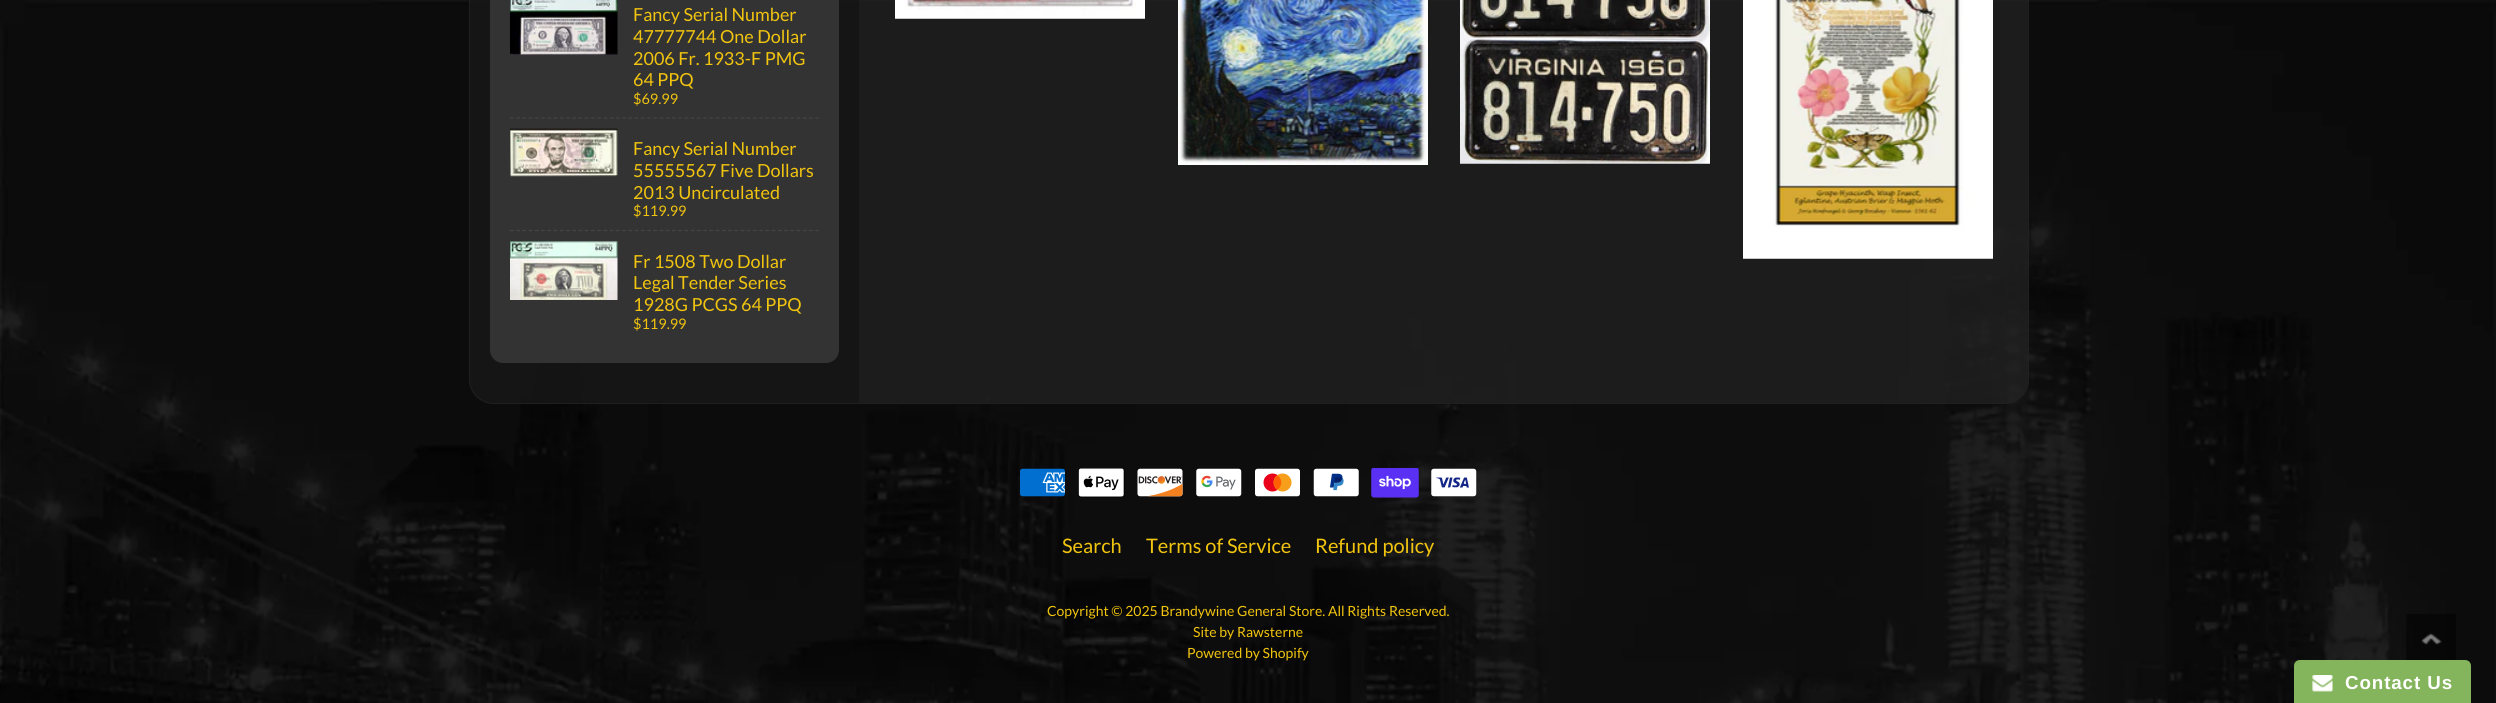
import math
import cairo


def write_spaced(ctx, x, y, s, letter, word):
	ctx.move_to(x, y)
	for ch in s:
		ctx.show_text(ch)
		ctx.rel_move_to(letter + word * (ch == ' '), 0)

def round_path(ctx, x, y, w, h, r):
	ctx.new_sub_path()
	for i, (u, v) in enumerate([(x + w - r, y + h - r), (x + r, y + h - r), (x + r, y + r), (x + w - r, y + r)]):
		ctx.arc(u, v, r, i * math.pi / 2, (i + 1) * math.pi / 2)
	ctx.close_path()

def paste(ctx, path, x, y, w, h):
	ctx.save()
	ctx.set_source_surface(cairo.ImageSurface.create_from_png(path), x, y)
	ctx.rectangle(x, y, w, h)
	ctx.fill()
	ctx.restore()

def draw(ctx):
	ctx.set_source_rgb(1, 1, 1)
	ctx.paint()
	paste(ctx, 'media/1.png', 0, 0, 2496, 703)
	ctx.set_source_rgba(0.133, 0.133, 0.133, 0.75)
	round_path(ctx, 469, -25, 1560, 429, 25)
	ctx.fill()
	round_path(ctx, 469.5, -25.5, 1559, 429, 24.5)
	ctx.set_source_rgba(0.133, 0.133, 0.133, 0.7)
	ctx.set_line_width(1)
	ctx.stroke()
	ctx.set_source_rgba(0, 0, 0, 0.25)
	ctx.new_path()
	ctx.move_to(494, -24)
	ctx.line_to(859, -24)
	ctx.line_to(859, 403)
	ctx.line_to(494, 403)
	ctx.curve_to(480.5, 403, 470, 392.5, 470, 379)
	ctx.line_to(470, 0)
	ctx.curve_to(470, -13.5, 480.5, -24, 494, -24)
	ctx.close_path()
	ctx.fill()
	ctx.set_source_rgb(0.2, 0.2, 0.2)
	round_path(ctx, 490, -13, 349, 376, 13)
	ctx.fill()
	paste(ctx, 'media/2.png', 510, 0, 108, 55)
	ctx.select_font_face('Lato')
	ctx.set_font_size(18)
	ctx.set_source_rgb(0.945, 0.769, 0.059)
	for x, y, s in [
		(633, 21, 'Fancy Serial Number'),
		(633, 43, '47777744 One Dollar'),
		(633, 65, '2006 Fr. 1933-F PMG'),
		(633, 86, '64 PPQ'),
	]:
		ctx.move_to(x, y)
		ctx.show_text(s)
	ctx.set_font_size(14.5)
	ctx.move_to(633, 104)
	ctx.show_text('$69.99')
	ctx.new_path()
	ctx.move_to(510, 118)
	ctx.line_to(819, 118)
	ctx.set_source_rgb(0.267, 0.267, 0.267)
	ctx.set_line_width(1.2)
	ctx.set_dash([3.75, 2.48])
	ctx.stroke()
	paste(ctx, 'media/3.png', 510, 128, 108, 49)
	ctx.set_font_size(18)
	ctx.set_source_rgb(0.945, 0.769, 0.059)
	for x, y, s in [
		(633, 155, 'Fancy Serial Number'),
		(633, 177, '55555567 Five Dollars'),
		(633, 199, '2013 Uncirculated'),
	]:
		ctx.move_to(x, y)
		ctx.show_text(s)
	ctx.set_font_size(14.5)
	ctx.move_to(633, 216)
	ctx.show_text('$119.99')
	ctx.new_path()
	ctx.move_to(510, 230.5)
	ctx.line_to(819, 230.5)
	ctx.set_source_rgb(0.267, 0.267, 0.267)
	ctx.stroke()
	paste(ctx, 'media/4.png', 510, 241, 108, 59)
	ctx.set_font_size(18)
	ctx.set_source_rgb(0.945, 0.769, 0.059)
	for x, y, s in [
		(633, 268, 'Fr 1508 Two Dollar'),
		(633, 289, 'Legal Tender Series'),
		(633, 311, '1928G PCGS 64 PPQ'),
	]:
		ctx.move_to(x, y)
		ctx.show_text(s)
	ctx.set_font_size(14.5)
	ctx.move_to(633, 329)
	ctx.show_text('$119.99')
	paste(ctx, 'media/5.png', 895, 0, 250, 19)
	paste(ctx, 'media/6.png', 1178, 0, 250, 165)
	paste(ctx, 'media/7.png', 1460, 0, 250, 164)
	paste(ctx, 'media/8.png', 1743, 0, 250, 259)
	paste(ctx, 'media/9.png', 1020, 468, 45, 29)
	paste(ctx, 'media/10.png', 1078, 468, 47, 30)
	paste(ctx, 'media/11.png', 1137, 468, 46, 29)
	paste(ctx, 'media/12.png', 1196, 468, 46, 29)
	paste(ctx, 'media/13.png', 1255, 468, 45, 29)
	paste(ctx, 'media/14.png', 1313, 468, 46, 29)
	paste(ctx, 'media/15.png', 1371, 468, 48, 30)
	paste(ctx, 'media/16.png', 1431, 468, 46, 29)
	ctx.set_font_size(20)
	for x, y, s in [
		(1062, 553, 'Search'),
		(1146, 553, 'Terms of Service'),
		(1315, 553, 'Refund policy'),
	]:
		ctx.move_to(x, y)
		ctx.show_text(s)
	ctx.set_font_size(14)
	for x, y, s in [
		(1047, 616, 'Copyright © 2025 Brandywine General Store. All Rights Reserved.'),
		(1193, 637, 'Site by Rawsterne'),
		(1187, 658, 'Powered by Shopify'),
	]:
		ctx.move_to(x, y)
		ctx.show_text(s)
	paste(ctx, 'media/17.png', 2406, 614, 50, 46)
	ctx.set_source_rgb(0.518, 0.706, 0.357)
	ctx.new_path()
	ctx.move_to(2300, 660)
	ctx.line_to(2465, 660)
	ctx.curve_to(2468.5, 660, 2471, 662.5, 2471, 666)
	ctx.line_to(2471, 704)
	ctx.line_to(2294, 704)
	ctx.line_to(2294, 666)
	ctx.curve_to(2294, 662.5, 2296.5, 660, 2300, 660)
	ctx.close_path()
	ctx.fill()
	paste(ctx, 'media/18.png', 2312, 675, 21, 17)
	ctx.select_font_face('Liberation Sans', cairo.FONT_SLANT_NORMAL, cairo.FONT_WEIGHT_BOLD)
	ctx.set_font_size(18.75)
	ctx.set_source_rgb(1, 1, 1)
	write_spaced(ctx, 2345, 689, 'Contact Us', 0.9, 0)


surface = cairo.ImageSurface(cairo.FORMAT_RGB24, 2496, 703)
ctx = cairo.Context(surface)
options = cairo.FontOptions()
options.set_hint_metrics(cairo.HINT_METRICS_OFF)
options.set_hint_style(cairo.HINT_STYLE_NONE)
ctx.set_font_options(options)
ctx.set_miter_limit(4)
draw(ctx)
surface.write_to_png('image.png')
